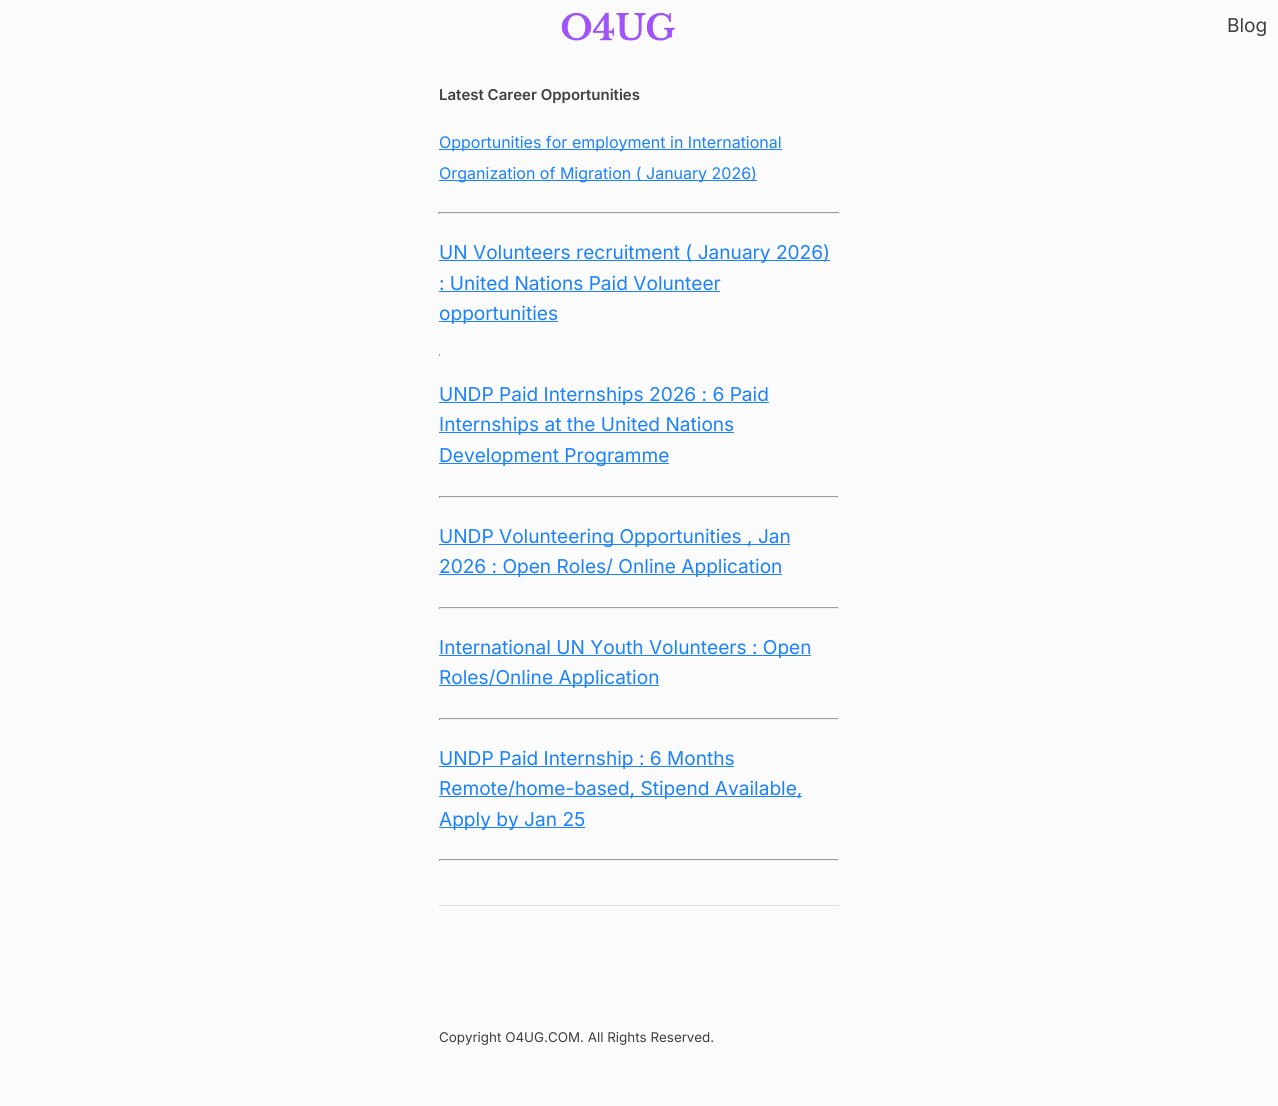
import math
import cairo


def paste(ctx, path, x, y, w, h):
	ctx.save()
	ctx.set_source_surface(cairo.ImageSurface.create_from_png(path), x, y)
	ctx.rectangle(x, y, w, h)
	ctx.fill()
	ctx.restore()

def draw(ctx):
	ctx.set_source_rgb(0.984, 0.984, 0.984)
	ctx.paint()
	paste(ctx, 'media/1.png', 561, 12, 114, 29)
	ctx.select_font_face('Inter')
	ctx.set_font_size(19.1)
	ctx.set_source_rgb(0.247, 0.247, 0.247)
	ctx.move_to(1227, 32)
	ctx.show_text('Blog')
	ctx.select_font_face('Inter SemiBold')
	ctx.set_font_size(15)
	ctx.move_to(439, 100)
	ctx.show_text('Latest Career Opportunities')
	ctx.set_source_rgb(0.102, 0.506, 1)
	ctx.rectangle(439, 149, 343, 1)
	ctx.fill()
	ctx.select_font_face('Inter')
	ctx.set_font_size(16)
	ctx.move_to(439, 148)
	ctx.show_text('Opportunities for employment in International')
	ctx.rectangle(439, 180, 318, 1)
	ctx.fill()
	ctx.move_to(439, 179)
	ctx.show_text('Organization of Migration ( January 2026)')
	ctx.set_source_rgb(0.624, 0.624, 0.624)
	ctx.rectangle(438, 212, 402, 1)
	ctx.fill()
	ctx.set_source_rgb(0.933, 0.933, 0.933)
	ctx.rectangle(839, 212, 1, 2)
	ctx.rectangle(438, 213, 402, 1)
	ctx.fill()
	ctx.set_source_rgb(0.624, 0.624, 0.624)
	ctx.rectangle(438, 212, 1, 2)
	ctx.fill()
	ctx.set_source_rgb(0.102, 0.506, 1)
	ctx.rectangle(439, 260, 391, 1)
	ctx.fill()
	ctx.set_font_size(19.1)
	ctx.move_to(439, 259)
	ctx.show_text('UN Volunteers recruitment ( January 2026)')
	ctx.move_to(439, 290)
	ctx.show_text(': United Nations Paid Volunteer')
	ctx.rectangle(439, 291, 281, 1)
	ctx.fill()
	ctx.rectangle(439, 321, 119, 1)
	ctx.fill()
	ctx.move_to(439, 320)
	ctx.show_text('opportunities')
	ctx.set_source_rgb(0.933, 0.933, 0.933)
	ctx.rectangle(440, 354, 1, 2)
	ctx.rectangle(439, 355, 2, 1)
	ctx.fill()
	ctx.set_source_rgb(0.624, 0.624, 0.624)
	ctx.rectangle(439, 354, 1, 2)
	ctx.fill()
	ctx.set_source_rgb(0.102, 0.506, 1)
	ctx.rectangle(439, 402, 330, 1)
	ctx.fill()
	ctx.move_to(439, 401)
	ctx.show_text('UNDP Paid Internships 2026 : 6 Paid')
	ctx.rectangle(439, 432, 295, 1)
	ctx.fill()
	ctx.move_to(439, 431)
	ctx.show_text('Internships at the United Nations')
	ctx.rectangle(439, 463, 230, 1)
	ctx.fill()
	ctx.move_to(439, 462)
	ctx.show_text('Development Programme')
	ctx.set_source_rgb(0.624, 0.624, 0.624)
	ctx.rectangle(439, 496, 400, 1)
	ctx.fill()
	ctx.set_source_rgb(0.933, 0.933, 0.933)
	ctx.rectangle(838, 496, 1, 2)
	ctx.rectangle(439, 497, 400, 1)
	ctx.fill()
	ctx.set_source_rgb(0.624, 0.624, 0.624)
	ctx.rectangle(439, 496, 1, 2)
	ctx.fill()
	ctx.set_source_rgb(0.102, 0.506, 1)
	ctx.rectangle(439, 544, 351, 1)
	ctx.fill()
	ctx.move_to(439, 543)
	ctx.show_text('UNDP Volunteering Opportunities , Jan')
	ctx.rectangle(439, 574, 343, 1)
	ctx.fill()
	ctx.move_to(439, 573)
	ctx.show_text('2026 : Open Roles/ Online Application')
	ctx.set_source_rgb(0.624, 0.624, 0.624)
	ctx.rectangle(439, 607, 400, 1)
	ctx.fill()
	ctx.set_source_rgb(0.933, 0.933, 0.933)
	ctx.rectangle(838, 607, 1, 2)
	ctx.rectangle(439, 608, 400, 1)
	ctx.fill()
	ctx.set_source_rgb(0.624, 0.624, 0.624)
	ctx.rectangle(439, 607, 1, 2)
	ctx.fill()
	ctx.set_source_rgb(0.102, 0.506, 1)
	ctx.rectangle(439, 655, 372, 1)
	ctx.fill()
	ctx.move_to(439, 654)
	ctx.show_text('International UN Youth Volunteers : Open')
	ctx.rectangle(439, 685, 220, 1)
	ctx.fill()
	ctx.move_to(439, 684)
	ctx.show_text('Roles/Online Application')
	ctx.set_source_rgb(0.624, 0.624, 0.624)
	ctx.rectangle(439, 718, 400, 1)
	ctx.fill()
	ctx.set_source_rgb(0.933, 0.933, 0.933)
	ctx.rectangle(838, 718, 1, 2)
	ctx.rectangle(439, 719, 400, 1)
	ctx.fill()
	ctx.set_source_rgb(0.624, 0.624, 0.624)
	ctx.rectangle(439, 718, 1, 2)
	ctx.fill()
	ctx.set_source_rgb(0.102, 0.506, 1)
	ctx.rectangle(439, 766, 295, 1)
	ctx.fill()
	ctx.move_to(439, 765)
	ctx.show_text('UNDP Paid Internship : 6 Months')
	ctx.rectangle(439, 796, 363, 1)
	ctx.fill()
	ctx.move_to(439, 795)
	ctx.show_text('Remote/home-based, Stipend Available,')
	ctx.rectangle(439, 827, 146, 1)
	ctx.fill()
	ctx.move_to(439, 826)
	ctx.show_text('Apply by Jan 25')
	ctx.set_source_rgb(0.624, 0.624, 0.624)
	ctx.rectangle(439, 859, 400, 1)
	ctx.fill()
	ctx.set_source_rgb(0.933, 0.933, 0.933)
	ctx.rectangle(838, 859, 1, 2)
	ctx.rectangle(439, 860, 400, 1)
	ctx.fill()
	ctx.set_source_rgb(0.624, 0.624, 0.624)
	ctx.rectangle(439, 859, 1, 2)
	ctx.fill()
	ctx.set_source_rgb(0.863, 0.863, 0.863)
	ctx.rectangle(439, 905, 400, 1)
	ctx.fill()
	ctx.set_font_size(13.4)
	ctx.set_source_rgb(0.247, 0.247, 0.247)
	ctx.move_to(439, 1042)
	ctx.show_text('Copyright O4UG.COM. All Rights Reserved.')


surface = cairo.ImageSurface(cairo.FORMAT_RGB24, 1278, 1106)
ctx = cairo.Context(surface)
options = cairo.FontOptions()
options.set_hint_metrics(cairo.HINT_METRICS_OFF)
options.set_hint_style(cairo.HINT_STYLE_NONE)
ctx.set_font_options(options)
ctx.set_miter_limit(4)
draw(ctx)
surface.write_to_png('image.png')
